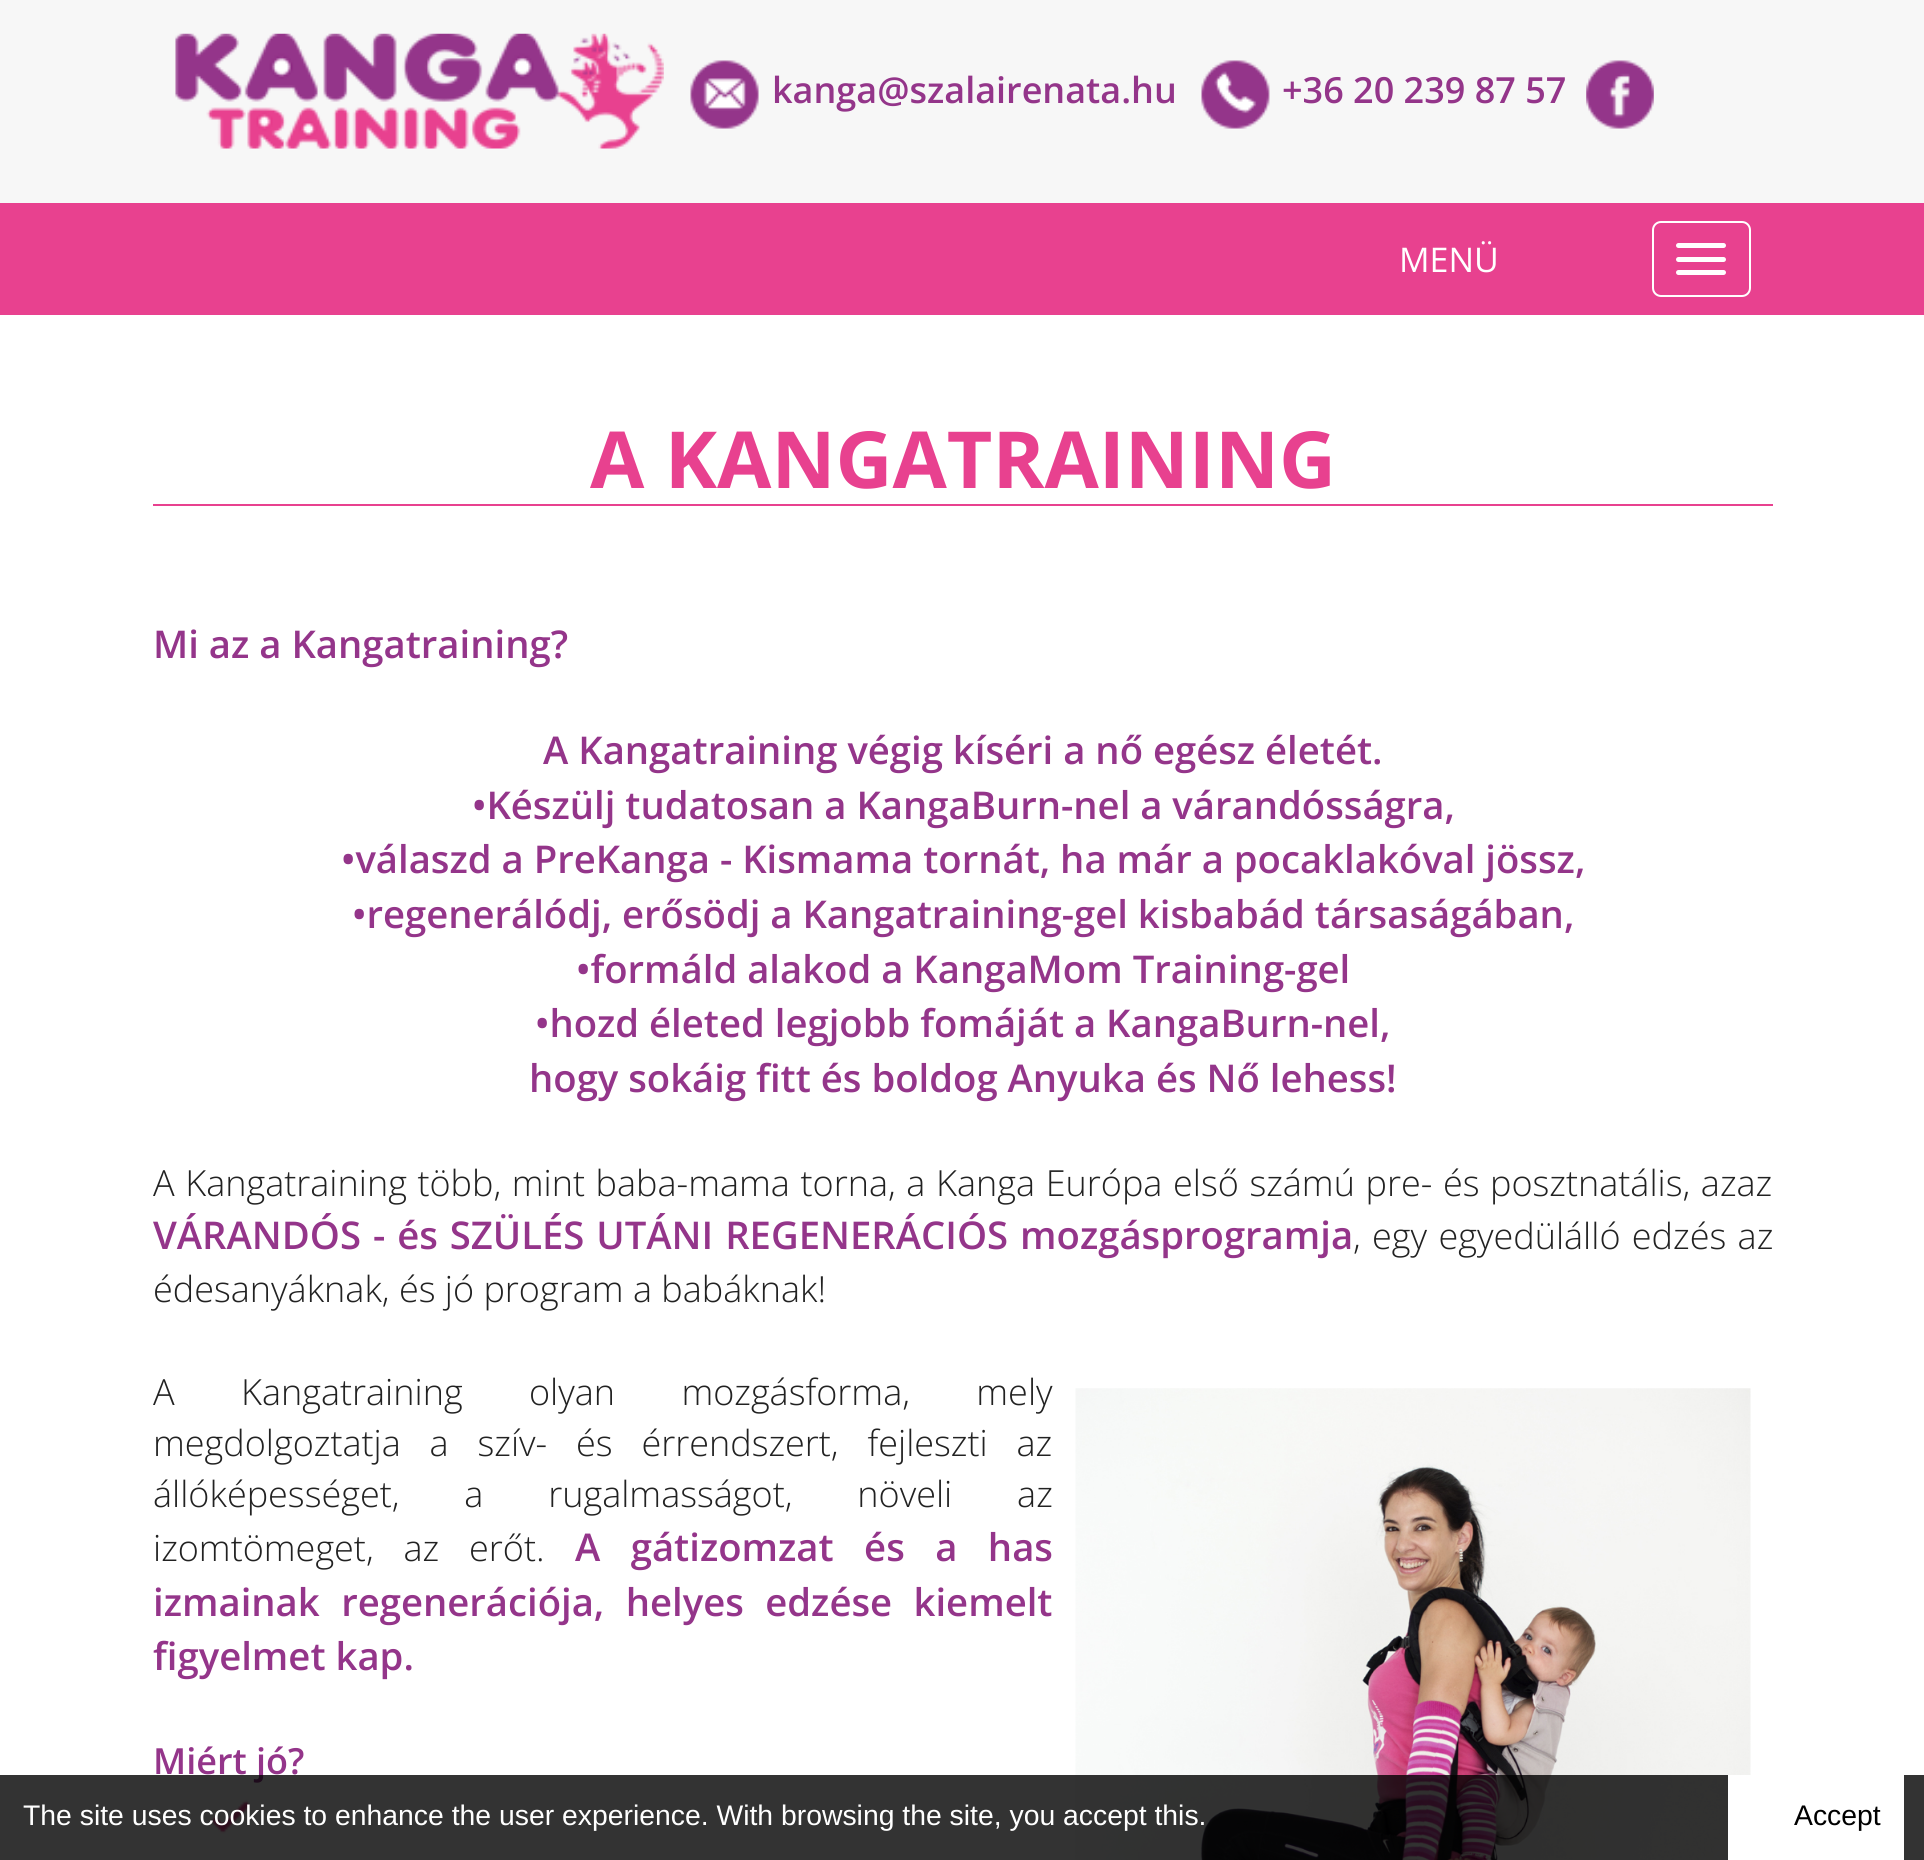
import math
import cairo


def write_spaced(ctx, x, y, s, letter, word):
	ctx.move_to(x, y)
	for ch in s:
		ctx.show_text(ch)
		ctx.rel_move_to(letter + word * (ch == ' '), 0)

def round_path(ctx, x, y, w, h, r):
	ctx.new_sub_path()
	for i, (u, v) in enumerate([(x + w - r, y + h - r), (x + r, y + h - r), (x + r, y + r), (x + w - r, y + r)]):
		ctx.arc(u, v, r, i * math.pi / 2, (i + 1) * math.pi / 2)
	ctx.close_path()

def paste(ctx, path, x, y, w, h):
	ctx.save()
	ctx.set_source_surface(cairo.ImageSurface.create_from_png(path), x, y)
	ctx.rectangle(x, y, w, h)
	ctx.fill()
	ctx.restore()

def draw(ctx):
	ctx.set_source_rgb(1, 1, 1)
	ctx.paint()
	ctx.set_source_rgb(0.965, 0.965, 0.965)
	ctx.rectangle(0, 0, 1924, 203)
	ctx.fill()
	paste(ctx, 'media/1.png', 175, 33, 489, 116)
	paste(ctx, 'media/2.png', 690, 60, 69, 69)
	ctx.select_font_face('Open Sans SemiBold')
	ctx.set_font_size(36)
	ctx.set_source_rgb(0.58, 0.208, 0.541)
	ctx.move_to(772, 103)
	ctx.show_text('kanga@szalairenata.hu')
	paste(ctx, 'media/3.png', 1201, 60, 69, 69)
	ctx.move_to(1282, 103)
	ctx.show_text('+36 20 239 87 57')
	paste(ctx, 'media/4.png', 1586, 60, 68, 69)
	ctx.set_source_rgb(0.91, 0.255, 0.561)
	ctx.rectangle(0, 203, 1924, 112)
	ctx.fill()
	ctx.select_font_face('Open Sans')
	ctx.set_font_size(34)
	ctx.set_source_rgb(1, 1, 1)
	ctx.move_to(1399, 272)
	ctx.show_text('MENÜ')
	round_path(ctx, 1653, 222, 97, 74, 8)
	ctx.stroke()
	round_path(ctx, 1676, 243, 50, 5, 2.5)
	ctx.fill()
	round_path(ctx, 1676, 257, 50, 5, 2.5)
	ctx.fill()
	round_path(ctx, 1676, 270, 50, 5, 2.5)
	ctx.fill()
	ctx.select_font_face('Open Sans', cairo.FONT_SLANT_NORMAL, cairo.FONT_WEIGHT_BOLD)
	ctx.set_font_size(78.75)
	ctx.set_source_rgb(0.91, 0.255, 0.561)
	ctx.move_to(590, 488)
	ctx.show_text('A KANGATRAINING')
	ctx.rectangle(153, 504, 1620, 2)
	ctx.fill()
	ctx.select_font_face('Open Sans SemiBold')
	ctx.set_font_size(38.25)
	ctx.set_source_rgb(0.58, 0.208, 0.541)
	for x, y, s in [
		(153, 658, 'Mi az a Kangatraining?'),
		(543, 764, 'A Kangatraining végig kíséri a nő egész életét.'),
		(472, 819, '•Készülj tudatosan a KangaBurn-nel a várandósságra,'),
		(341, 873, '•válaszd a PreKanga - Kismama tornát, ha már a pocaklakóval jössz,'),
		(352, 928, '•regenerálódj, erősödj a Kangatraining-gel kisbabád társaságában,'),
		(576, 983, '•formáld alakod a KangaMom Training-gel'),
		(535, 1037, '•hozd életed legjobb fomáját a KangaBurn-nel,'),
		(529, 1092, 'hogy sokáig fitt és boldog Anyuka és Nő lehess!'),
	]:
		ctx.move_to(x, y)
		ctx.show_text(s)
	ctx.select_font_face('Open Sans Light')
	ctx.set_font_size(36)
	ctx.set_source_rgb(0.133, 0.133, 0.133)
	write_spaced(ctx, 153, 1196, 'A Kangatraining több, mint baba-mama torna, a Kanga Európa első számú pre- és posztnatális, azaz', 0, 1.25)
	ctx.select_font_face('Open Sans SemiBold')
	ctx.set_font_size(38.25)
	ctx.set_source_rgb(0.58, 0.208, 0.541)
	write_spaced(ctx, 153, 1249, 'VÁRANDÓS - és SZÜLÉS UTÁNI REGENERÁCIÓS mozgásprogramja', 0, 2)
	ctx.select_font_face('Open Sans Light')
	ctx.set_font_size(36)
	ctx.set_source_rgb(0.133, 0.133, 0.133)
	write_spaced(ctx, 1353, 1249, ', egy egyedülálló edzés az', 0, 2)
	ctx.move_to(153, 1302)
	ctx.show_text('édesanyáknak, és jó program a babáknak!')
	write_spaced(ctx, 153, 1405, 'A Kangatraining olyan mozgásforma, mely', 0, 57)
	paste(ctx, 'media/5.png', 1075, 1388, 676, 472)
	write_spaced(ctx, 153, 1456, 'megdolgoztatja a szív- és érrendszert, fejleszti az', 0, 19.5)
	write_spaced(ctx, 153, 1507, 'állóképességet, a rugalmasságot, növeli az', 0, 55.5)
	write_spaced(ctx, 153, 1561, 'izomtömeget, az erőt.', 0, 20.5)
	ctx.select_font_face('Open Sans SemiBold')
	ctx.set_font_size(38.25)
	ctx.set_source_rgb(0.58, 0.208, 0.541)
	write_spaced(ctx, 575, 1561, 'A gátizomzat és a has', 0, 20.5)
	write_spaced(ctx, 153, 1616, 'izmainak regenerációja, helyes edzése kiemelt', 0, 11.5)
	ctx.move_to(153, 1670)
	ctx.show_text('figyelmet kap.')
	ctx.set_font_size(36)
	ctx.move_to(153, 1774)
	ctx.show_text('Miért jó?')
	paste(ctx, 'media/6.png', 211, 1799, 39, 35)
	ctx.set_source_rgba(0, 0, 0, 0.8)
	ctx.rectangle(0, 1775, 1924, 85)
	ctx.fill()
	ctx.select_font_face('Liberation Sans')
	ctx.set_font_size(28.35)
	ctx.set_source_rgb(1, 1, 1)
	ctx.move_to(23, 1825)
	ctx.show_text('The site uses cookies to enhance the user experience. With browsing the site, you accept this.')
	ctx.rectangle(1728, 1775, 176, 85)
	ctx.fill()
	ctx.set_source_rgb(0, 0, 0)
	ctx.move_to(1794, 1825)
	ctx.show_text('Accept')


surface = cairo.ImageSurface(cairo.FORMAT_RGB24, 1924, 1860)
ctx = cairo.Context(surface)
options = cairo.FontOptions()
options.set_hint_metrics(cairo.HINT_METRICS_OFF)
options.set_hint_style(cairo.HINT_STYLE_NONE)
ctx.set_font_options(options)
ctx.set_miter_limit(4)
draw(ctx)
surface.write_to_png('image.png')
